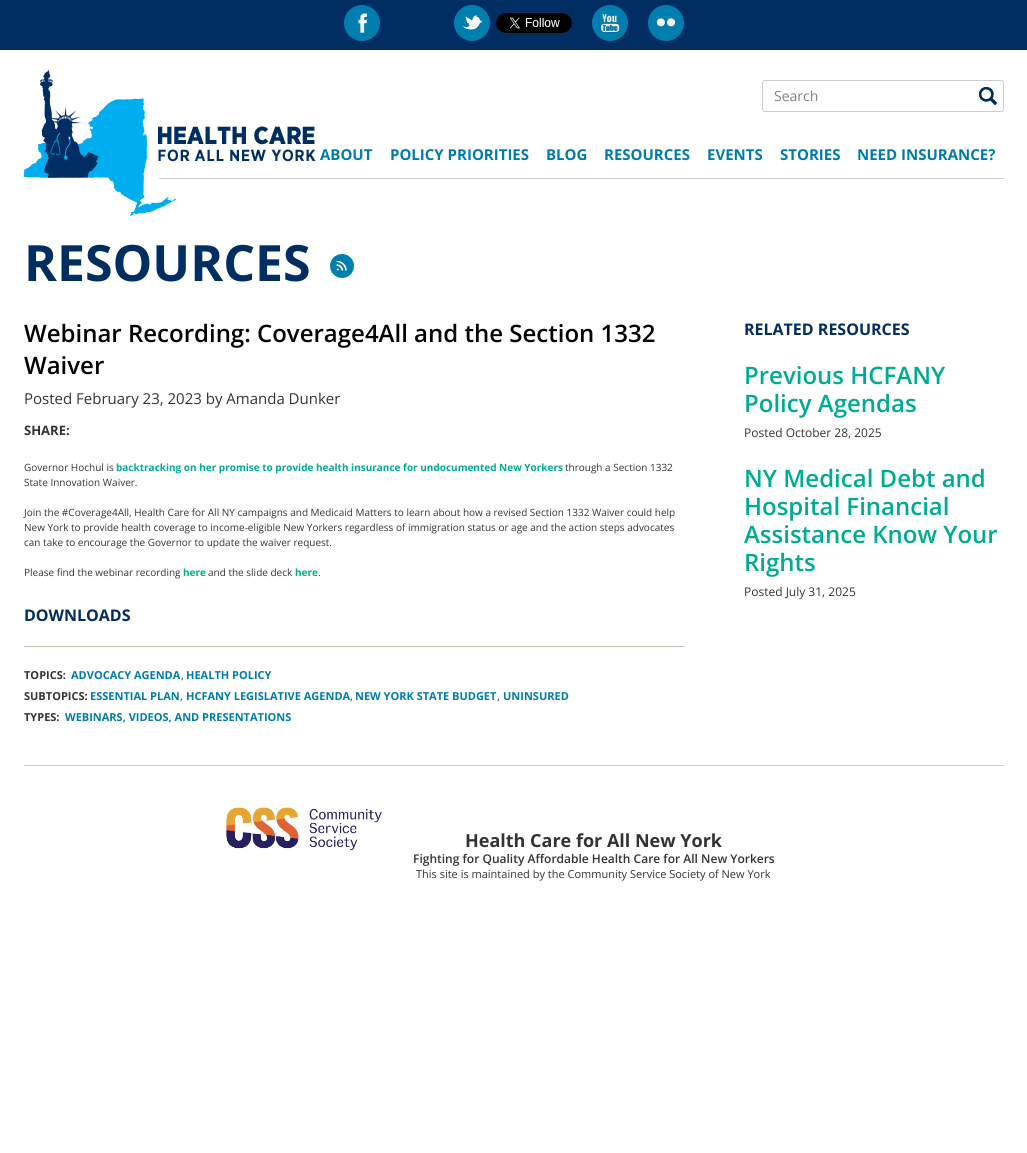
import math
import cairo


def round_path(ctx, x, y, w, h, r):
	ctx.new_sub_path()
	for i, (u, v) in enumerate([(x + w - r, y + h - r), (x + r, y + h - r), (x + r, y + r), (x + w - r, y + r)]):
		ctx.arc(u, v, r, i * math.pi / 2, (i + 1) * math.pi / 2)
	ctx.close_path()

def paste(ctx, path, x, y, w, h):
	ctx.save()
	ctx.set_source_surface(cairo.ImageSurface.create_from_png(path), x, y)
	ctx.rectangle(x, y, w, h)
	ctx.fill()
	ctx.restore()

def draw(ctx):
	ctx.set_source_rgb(1, 1, 1)
	ctx.paint()
	ctx.set_source_rgb(0, 0.176, 0.384)
	ctx.rectangle(0, 0, 1027, 50)
	ctx.fill()
	ctx.set_source_rgb(0, 0.494, 0.69)
	ctx.arc(362, 23, 18, 0, 2 * math.pi)
	ctx.fill()
	paste(ctx, 'media/1.png', 357, 13, 11, 21)
	ctx.arc(472, 23, 18, 0, 2 * math.pi)
	ctx.fill()
	paste(ctx, 'media/2.png', 462, 15, 21, 15)
	paste(ctx, 'media/3.png', 496, 13, 76, 20)
	ctx.arc(610, 23, 18, 0, 2 * math.pi)
	ctx.fill()
	paste(ctx, 'media/4.png', 600, 14, 20, 19)
	ctx.arc(666, 23, 18, 0, 2 * math.pi)
	ctx.fill()
	paste(ctx, 'media/5.png', 656, 18, 20, 9)
	ctx.set_source_rgb(0.835, 0.812, 0.78)
	ctx.rectangle(159, 178, 845, 1)
	ctx.fill()
	paste(ctx, 'media/6.png', 24, 70, 292, 146)
	round_path(ctx, 762.5, 80.5, 241, 31, 2.5)
	ctx.set_source_rgb(0.8, 0.8, 0.8)
	ctx.set_line_width(1)
	ctx.stroke()
	ctx.set_source_rgb(1, 1, 1)
	round_path(ctx, 763, 81, 240, 30, 3)
	ctx.fill()
	ctx.select_font_face('Open Sans')
	ctx.set_font_size(14)
	ctx.set_source_rgb(0.502, 0.502, 0.502)
	ctx.move_to(774, 101)
	ctx.show_text('Search')
	paste(ctx, 'media/7.png', 979, 87, 18, 18)
	ctx.select_font_face('Open Sans', cairo.FONT_SLANT_NORMAL, cairo.FONT_WEIGHT_BOLD)
	ctx.set_font_size(15)
	ctx.set_source_rgb(0, 0.486, 0.667)
	for x, y, s in [
		(320, 160, 'ABOUT'),
		(390, 160, 'POLICY PRIORITIES'),
		(546, 160, 'BLOG'),
		(604, 160, 'RESOURCES'),
		(707, 160, 'EVENTS'),
		(780, 160, 'STORIES'),
		(857, 160, 'NEED INSURANCE?'),
	]:
		ctx.move_to(x, y)
		ctx.show_text(s)
	ctx.set_font_size(50)
	ctx.set_source_rgb(0, 0.176, 0.384)
	ctx.move_to(24, 281)
	ctx.show_text('RESOURCES')
	ctx.set_source_rgb(0, 0.494, 0.69)
	ctx.new_path()
	ctx.arc(342, 266, 12, 0, 2 * math.pi)
	ctx.fill()
	paste(ctx, 'media/8.png', 336, 261, 12, 10)
	ctx.select_font_face('Open Sans SemiBold')
	ctx.set_font_size(24)
	ctx.set_source_rgb(0, 0, 0)
	ctx.move_to(24, 342)
	ctx.show_text('Webinar Recording: Coverage4All and the Section 1332')
	ctx.move_to(24, 374)
	ctx.show_text('Waiver')
	ctx.select_font_face('Open Sans')
	ctx.set_font_size(15)
	ctx.set_source_rgb(0.2, 0.2, 0.2)
	ctx.move_to(24, 404)
	ctx.show_text('Posted February 23, 2023 by Amanda Dunker')
	ctx.select_font_face('Open Sans', cairo.FONT_SLANT_NORMAL, cairo.FONT_WEIGHT_BOLD)
	ctx.set_font_size(13)
	ctx.move_to(24, 435)
	ctx.show_text('SHARE:')
	ctx.select_font_face('Open Sans')
	ctx.set_font_size(10)
	ctx.move_to(24, 471)
	ctx.show_text('Governor Hochul is')
	ctx.select_font_face('Open Sans', cairo.FONT_SLANT_NORMAL, cairo.FONT_WEIGHT_BOLD)
	ctx.set_source_rgb(0, 0.671, 0.58)
	ctx.move_to(116, 471)
	ctx.show_text('backtracking on her promise to provide health insurance for undocumented New Yorkers')
	ctx.select_font_face('Open Sans')
	ctx.set_source_rgb(0.2, 0.2, 0.2)
	for x, y, s in [
		(565, 471, 'through a Section 1332'),
		(24, 486, 'State Innovation Waiver.'),
		(24, 516, 'Join the #Coverage4All, Health Care for All NY campaigns and Medicaid Matters to learn about how a revised Section 1332 Waiver could help'),
		(24, 531, 'New York to provide health coverage to income-eligible New Yorkers regardless of immigration status or age and the action steps advocates'),
		(24, 546, 'can take to encourage the Governor to update the waiver request.'),
		(24, 576, 'Please find the webinar recording'),
	]:
		ctx.move_to(x, y)
		ctx.show_text(s)
	ctx.select_font_face('Open Sans', cairo.FONT_SLANT_NORMAL, cairo.FONT_WEIGHT_BOLD)
	ctx.set_source_rgb(0, 0.671, 0.58)
	ctx.move_to(183, 576)
	ctx.show_text('here')
	ctx.select_font_face('Open Sans')
	ctx.set_source_rgb(0.2, 0.2, 0.2)
	ctx.move_to(208, 576)
	ctx.show_text('and the slide deck')
	ctx.select_font_face('Open Sans', cairo.FONT_SLANT_NORMAL, cairo.FONT_WEIGHT_BOLD)
	ctx.set_source_rgb(0, 0.671, 0.58)
	ctx.move_to(295, 576)
	ctx.show_text('here')
	ctx.select_font_face('Open Sans')
	ctx.set_source_rgb(0.2, 0.2, 0.2)
	ctx.move_to(318, 576)
	ctx.show_text('.')
	ctx.select_font_face('Open Sans', cairo.FONT_SLANT_NORMAL, cairo.FONT_WEIGHT_BOLD)
	ctx.set_font_size(16)
	ctx.set_source_rgb(0, 0.176, 0.384)
	ctx.move_to(24, 621)
	ctx.show_text('DOWNLOADS')
	ctx.set_source_rgb(0.776, 0.741, 0.698)
	ctx.rectangle(24, 646, 660, 1)
	ctx.fill()
	ctx.set_font_size(11)
	ctx.set_source_rgb(0.2, 0.2, 0.2)
	ctx.move_to(24, 679)
	ctx.show_text('TOPICS:')
	ctx.set_source_rgb(0, 0.486, 0.667)
	ctx.move_to(71, 679)
	ctx.show_text('ADVOCACY AGENDA')
	ctx.select_font_face('Open Sans')
	ctx.set_source_rgb(0.2, 0.2, 0.2)
	ctx.move_to(181, 679)
	ctx.show_text(',')
	ctx.select_font_face('Open Sans', cairo.FONT_SLANT_NORMAL, cairo.FONT_WEIGHT_BOLD)
	ctx.set_source_rgb(0, 0.486, 0.667)
	ctx.move_to(186, 679)
	ctx.show_text('HEALTH POLICY')
	ctx.set_source_rgb(0.2, 0.2, 0.2)
	ctx.move_to(24, 700)
	ctx.show_text('SUBTOPICS:')
	ctx.set_source_rgb(0, 0.486, 0.667)
	ctx.move_to(90, 700)
	ctx.show_text('ESSENTIAL PLAN')
	ctx.select_font_face('Open Sans')
	ctx.set_source_rgb(0.2, 0.2, 0.2)
	ctx.move_to(180, 700)
	ctx.show_text(',')
	ctx.select_font_face('Open Sans', cairo.FONT_SLANT_NORMAL, cairo.FONT_WEIGHT_BOLD)
	ctx.set_source_rgb(0, 0.486, 0.667)
	ctx.move_to(186, 700)
	ctx.show_text('HCFANY LEGISLATIVE AGENDA')
	ctx.select_font_face('Open Sans')
	ctx.set_source_rgb(0.2, 0.2, 0.2)
	ctx.move_to(350, 700)
	ctx.show_text(',')
	ctx.select_font_face('Open Sans', cairo.FONT_SLANT_NORMAL, cairo.FONT_WEIGHT_BOLD)
	ctx.set_source_rgb(0, 0.486, 0.667)
	ctx.move_to(355, 700)
	ctx.show_text('NEW YORK STATE BUDGET')
	ctx.select_font_face('Open Sans')
	ctx.set_source_rgb(0.2, 0.2, 0.2)
	ctx.move_to(497, 700)
	ctx.show_text(',')
	ctx.select_font_face('Open Sans', cairo.FONT_SLANT_NORMAL, cairo.FONT_WEIGHT_BOLD)
	ctx.set_source_rgb(0, 0.486, 0.667)
	ctx.move_to(503, 700)
	ctx.show_text('UNINSURED')
	ctx.set_source_rgb(0.2, 0.2, 0.2)
	ctx.move_to(24, 721)
	ctx.show_text('TYPES:')
	ctx.set_source_rgb(0, 0.486, 0.667)
	ctx.move_to(65, 721)
	ctx.show_text('WEBINARS, VIDEOS, AND PRESENTATIONS')
	ctx.set_font_size(16)
	ctx.set_source_rgb(0, 0.176, 0.384)
	ctx.move_to(744, 335)
	ctx.show_text('RELATED RESOURCES')
	ctx.select_font_face('Open Sans SemiBold')
	ctx.set_font_size(24)
	ctx.set_source_rgb(0, 0.671, 0.58)
	ctx.move_to(744, 384)
	ctx.show_text('Previous HCFANY')
	ctx.move_to(744, 412)
	ctx.show_text('Policy Agendas')
	ctx.select_font_face('Open Sans')
	ctx.set_font_size(12)
	ctx.set_source_rgb(0.2, 0.2, 0.2)
	ctx.move_to(744, 437)
	ctx.show_text('Posted October 28, 2025')
	ctx.select_font_face('Open Sans SemiBold')
	ctx.set_font_size(24)
	ctx.set_source_rgb(0, 0.671, 0.58)
	for x, y, s in [
		(744, 487, 'NY Medical Debt and'),
		(744, 515, 'Hospital Financial'),
		(744, 543, 'Assistance Know Your'),
		(744, 571, 'Rights'),
	]:
		ctx.move_to(x, y)
		ctx.show_text(s)
	ctx.select_font_face('Open Sans')
	ctx.set_font_size(12)
	ctx.set_source_rgb(0.2, 0.2, 0.2)
	ctx.move_to(744, 596)
	ctx.show_text('Posted July 31, 2025')
	ctx.set_source_rgb(0.835, 0.812, 0.78)
	ctx.rectangle(24, 765, 980, 1)
	ctx.fill()
	paste(ctx, 'media/9.png', 226, 807, 156, 44)
	ctx.select_font_face('Open Sans', cairo.FONT_SLANT_NORMAL, cairo.FONT_WEIGHT_BOLD)
	ctx.set_font_size(18)
	ctx.set_source_rgb(0.2, 0.2, 0.2)
	ctx.move_to(465, 847)
	ctx.show_text('Health Care for All New York')
	ctx.select_font_face('Open Sans SemiBold')
	ctx.set_font_size(12)
	ctx.move_to(413, 863)
	ctx.show_text('Fighting for Quality Affordable Health Care for All New Yorkers')
	ctx.select_font_face('Open Sans')
	ctx.set_font_size(11)
	ctx.move_to(416, 878)
	ctx.show_text('This site is maintained by the Community Service Society of New York')


surface = cairo.ImageSurface(cairo.FORMAT_RGB24, 1027, 1153)
ctx = cairo.Context(surface)
options = cairo.FontOptions()
options.set_hint_metrics(cairo.HINT_METRICS_OFF)
options.set_hint_style(cairo.HINT_STYLE_NONE)
ctx.set_font_options(options)
ctx.set_miter_limit(4)
draw(ctx)
surface.write_to_png('image.png')
